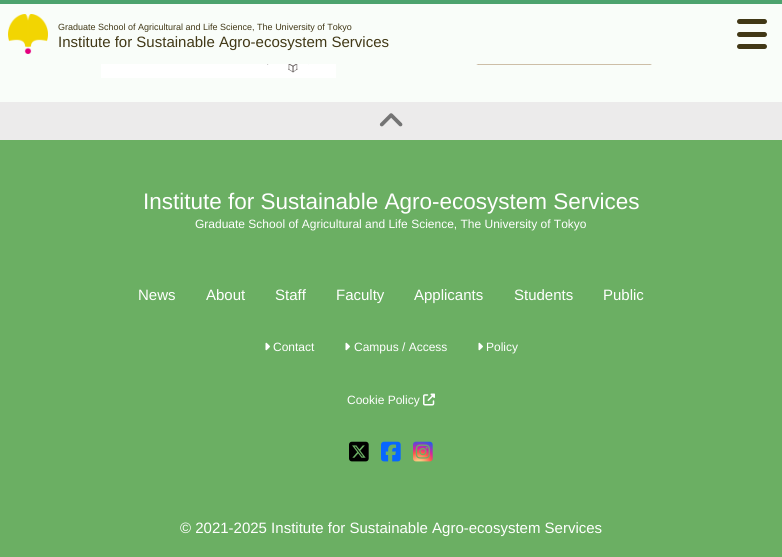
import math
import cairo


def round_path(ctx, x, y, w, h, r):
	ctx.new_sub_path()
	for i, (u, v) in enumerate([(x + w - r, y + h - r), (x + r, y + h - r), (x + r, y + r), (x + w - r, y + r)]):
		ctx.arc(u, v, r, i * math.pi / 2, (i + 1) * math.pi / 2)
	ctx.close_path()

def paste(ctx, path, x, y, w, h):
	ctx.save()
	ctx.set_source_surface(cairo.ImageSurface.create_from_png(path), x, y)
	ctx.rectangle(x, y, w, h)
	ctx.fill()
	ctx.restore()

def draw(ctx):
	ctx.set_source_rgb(0.976, 0.992, 0.976)
	ctx.paint()
	ctx.set_source_rgb(0.302, 0.639, 0.431)
	ctx.rectangle(0, 0, 782, 4)
	ctx.fill()
	paste(ctx, 'media/1.png', 8, 14, 40, 40)
	ctx.select_font_face('Liberation Sans')
	ctx.set_font_size(9)
	ctx.set_source_rgb(0.255, 0.22, 0.086)
	ctx.move_to(58, 30)
	ctx.show_text('Graduate School of Agricultural and Life Science, The University of Tokyo')
	ctx.set_font_size(15)
	ctx.move_to(58, 47)
	ctx.show_text('Institute for Sustainable Agro-ecosystem Services')
	round_path(ctx, 737, 19, 30, 5, 2.5)
	ctx.fill()
	round_path(ctx, 737, 32, 30, 5, 2.5)
	ctx.fill()
	round_path(ctx, 737, 44, 30, 5, 2.5)
	ctx.fill()
	paste(ctx, 'media/2.png', 101, 64, 235, 14)
	paste(ctx, 'media/3.png', 476, 64, 176, 1)
	ctx.set_source_rgb(0.925, 0.918, 0.918)
	ctx.rectangle(0, 102, 782, 38)
	ctx.fill()
	paste(ctx, 'media/4.png', 379, 113, 24, 14)
	ctx.set_source_rgb(0.42, 0.686, 0.388)
	ctx.rectangle(0, 140, 782, 417)
	ctx.fill()
	ctx.set_font_size(22.5)
	ctx.set_source_rgb(1, 1, 1)
	ctx.move_to(143, 209)
	ctx.show_text('Institute for Sustainable Agro-ecosystem Services')
	ctx.set_font_size(12)
	ctx.move_to(195, 228)
	ctx.show_text('Graduate School of Agricultural and Life Science, The University of Tokyo')
	ctx.set_font_size(15)
	for x, y, s in [
		(138, 300, 'News'),
		(206, 300, 'About'),
		(275, 300, 'Staff'),
		(336, 300, 'Faculty'),
		(414, 300, 'Applicants'),
		(514, 300, 'Students'),
		(603, 300, 'Public'),
	]:
		ctx.move_to(x, y)
		ctx.show_text(s)
	paste(ctx, 'media/5.png', 265, 342, 5, 9)
	ctx.set_font_size(12)
	ctx.move_to(273, 351)
	ctx.show_text('Contact')
	paste(ctx, 'media/5.png', 345, 342, 5, 9)
	ctx.move_to(354, 351)
	ctx.show_text('Campus / Access')
	paste(ctx, 'media/5.png', 478, 342, 5, 9)
	ctx.move_to(486, 351)
	ctx.show_text('Policy')
	ctx.move_to(347, 404)
	ctx.show_text('Cookie Policy')
	paste(ctx, 'media/6.png', 423, 393, 12, 13)
	paste(ctx, 'media/7.png', 349, 441, 20, 21)
	paste(ctx, 'media/8.png', 381, 441, 20, 21)
	paste(ctx, 'media/9.png', 413, 441, 20, 21)
	ctx.set_font_size(15)
	ctx.move_to(180, 533)
	ctx.show_text('© 2021-2025 Institute for Sustainable Agro-ecosystem Services')


surface = cairo.ImageSurface(cairo.FORMAT_RGB24, 782, 557)
ctx = cairo.Context(surface)
options = cairo.FontOptions()
options.set_hint_metrics(cairo.HINT_METRICS_OFF)
options.set_hint_style(cairo.HINT_STYLE_NONE)
ctx.set_font_options(options)
ctx.set_miter_limit(4)
draw(ctx)
surface.write_to_png('image.png')
